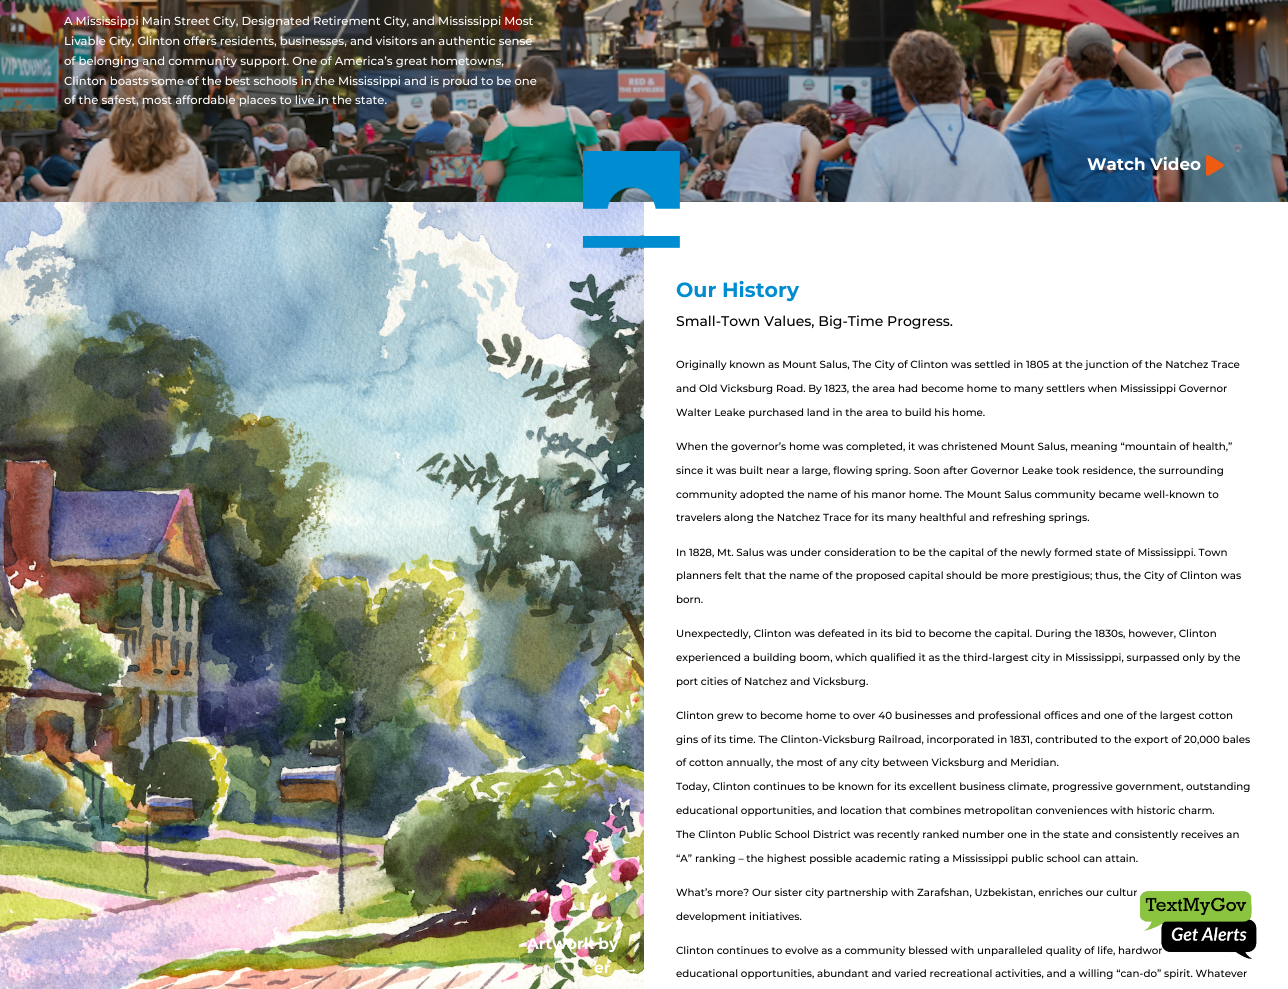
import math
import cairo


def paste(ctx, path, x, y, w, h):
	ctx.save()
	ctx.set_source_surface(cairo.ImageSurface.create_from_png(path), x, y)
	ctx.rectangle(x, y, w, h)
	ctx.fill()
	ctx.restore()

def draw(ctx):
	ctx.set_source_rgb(1, 1, 1)
	ctx.paint()
	paste(ctx, 'media/1.png', 0, 0, 1288, 202)
	ctx.select_font_face('Montserrat Medium')
	ctx.set_font_size(11.6)
	ctx.set_source_rgb(1, 1, 1)
	for x, y, s in [
		(64, 25, 'A Mississippi Main Street City, Designated Retirement City, and Mississippi Most'),
		(64, 45, 'Livable City, Clinton offers residents, businesses, and visitors an authentic sense'),
		(64, 65, 'of belonging and community support. One of America’s great hometowns,'),
		(64, 85, 'Clinton boasts some of the best schools in the Mississippi and is proud to be one'),
		(64, 104, 'of the safest, most affordable places to live in the state.'),
	]:
		ctx.move_to(x, y)
		ctx.show_text(s)
	ctx.select_font_face('Montserrat', cairo.FONT_SLANT_NORMAL, cairo.FONT_WEIGHT_BOLD)
	ctx.set_font_size(16.75)
	ctx.move_to(1087, 170)
	ctx.show_text('Watch Video')
	paste(ctx, 'media/2.png', 1206, 155, 18, 21)
	paste(ctx, 'media/3.png', 0, 202, 644, 787)
	ctx.set_font_size(15.5)
	ctx.move_to(527, 949)
	ctx.show_text('Artwork by')
	ctx.move_to(594, 973)
	ctx.show_text('er')
	ctx.select_font_face('Liberation Sans', cairo.FONT_SLANT_NORMAL, cairo.FONT_WEIGHT_BOLD)
	ctx.move_to(623, 973)
	ctx.show_text('→')
	paste(ctx, 'media/4.png', 583, 151, 97, 97)
	ctx.select_font_face('Montserrat', cairo.FONT_SLANT_NORMAL, cairo.FONT_WEIGHT_BOLD)
	ctx.set_font_size(20.5)
	ctx.set_source_rgb(0, 0.549, 0.816)
	ctx.move_to(676, 297)
	ctx.show_text('Our History')
	ctx.select_font_face('Montserrat Medium')
	ctx.set_font_size(14)
	ctx.set_source_rgb(0, 0, 0)
	ctx.move_to(676, 326)
	ctx.show_text('Small-Town Values, Big-Time Progress.')
	ctx.set_font_size(10.3)
	for x, y, s in [
		(676, 368, 'Originally known as Mount Salus, The City of Clinton was settled in 1805 at the junction of the Natchez Trace'),
		(676, 392, 'and Old Vicksburg Road. By 1823, the area had become home to many settlers when Mississippi Governor'),
		(676, 416, 'Walter Leake purchased land in the area to build his home.'),
		(676, 450, 'When the governor’s home was completed, it was christened Mount Salus, meaning “mountain of health,”'),
		(676, 474, 'since it was built near a large, flowing spring. Soon after Governor Leake took residence, the surrounding'),
		(676, 498, 'community adopted the name of his manor home. The Mount Salus community became well-known to'),
		(676, 521, 'travelers along the Natchez Trace for its many healthful and refreshing springs.'),
		(676, 556, 'In 1828, Mt. Salus was under consideration to be the capital of the newly formed state of Mississippi. Town'),
		(676, 579, 'planners felt that the name of the proposed capital should be more prestigious; thus, the City of Clinton was'),
		(676, 603, 'born.'),
		(676, 637, 'Unexpectedly, Clinton was defeated in its bid to become the capital. During the 1830s, however, Clinton'),
		(676, 661, 'experienced a building boom, which qualified it as the third-largest city in Mississippi, surpassed only by the'),
		(676, 685, 'port cities of Natchez and Vicksburg.'),
		(676, 719, 'Clinton grew to become home to over 40 businesses and professional offices and one of the largest cotton'),
		(676, 743, 'gins of its time. The Clinton-Vicksburg Railroad, incorporated in 1831, contributed to the export of 20,000 bales'),
		(676, 766, 'of cotton annually, the most of any city between Vicksburg and Meridian.'),
		(676, 790, 'Today, Clinton continues to be known for its excellent business climate, progressive government, outstanding'),
		(676, 814, 'educational opportunities, and location that combines metropolitan conveniences with historic charm.'),
		(676, 838, 'The Clinton Public School District was recently ranked number one in the state and consistently receives an'),
		(676, 862, '“A” ranking – the highest possible academic rating a Mississippi public school can attain.'),
		(676, 896, 'What’s more? Our sister city partnership with Zarafshan, Uzbekistan, enriches our cultur'),
		(676, 920, 'development initiatives.'),
		(676, 954, 'Clinton continues to evolve as a community blessed with unparalleled quality of life, hardwor'),
		(676, 977, 'educational opportunities, abundant and varied recreational activities, and a willing “can-do” spirit. Whatever'),
	]:
		ctx.move_to(x, y)
		ctx.show_text(s)
	paste(ctx, 'media/5.png', 1139, 891, 118, 68)


surface = cairo.ImageSurface(cairo.FORMAT_RGB24, 1288, 989)
ctx = cairo.Context(surface)
options = cairo.FontOptions()
options.set_hint_metrics(cairo.HINT_METRICS_OFF)
options.set_hint_style(cairo.HINT_STYLE_NONE)
ctx.set_font_options(options)
ctx.set_miter_limit(4)
draw(ctx)
surface.write_to_png('image.png')
